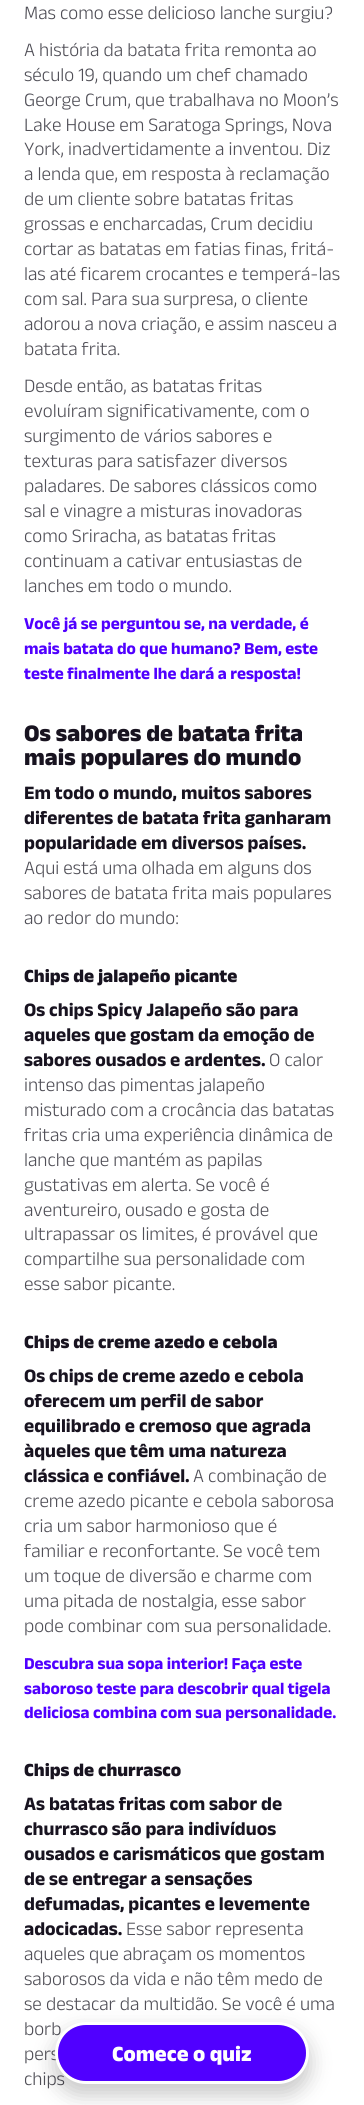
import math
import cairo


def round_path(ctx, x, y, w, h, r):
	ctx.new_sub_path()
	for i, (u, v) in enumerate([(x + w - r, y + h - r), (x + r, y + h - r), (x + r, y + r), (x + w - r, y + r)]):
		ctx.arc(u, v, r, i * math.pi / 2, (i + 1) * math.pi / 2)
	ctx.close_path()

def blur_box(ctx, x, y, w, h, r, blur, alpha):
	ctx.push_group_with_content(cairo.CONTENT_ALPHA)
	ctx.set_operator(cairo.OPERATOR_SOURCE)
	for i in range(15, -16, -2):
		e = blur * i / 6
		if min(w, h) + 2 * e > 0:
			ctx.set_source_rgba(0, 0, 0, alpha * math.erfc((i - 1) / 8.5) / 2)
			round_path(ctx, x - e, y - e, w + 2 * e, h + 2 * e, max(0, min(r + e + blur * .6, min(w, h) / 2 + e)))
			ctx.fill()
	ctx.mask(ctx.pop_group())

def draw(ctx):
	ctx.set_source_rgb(1, 1, 1)
	ctx.paint()
	ctx.select_font_face('Anek Latin Light')
	ctx.set_font_size(19.25)
	ctx.set_source_rgb(0.314, 0.31, 0.341)
	for x, y, s in [
		(24, 19, 'Mas como esse delicioso lanche surgiu?'),
		(24, 56, 'A história da batata frita remonta ao'),
		(24, 81, 'século 19, quando um chef chamado'),
		(24, 106, 'George Crum, que trabalhava no Moon’s'),
		(24, 131, 'Lake House em Saratoga Springs, Nova'),
		(24, 155, 'York, inadvertidamente a inventou. Diz'),
		(24, 180, 'a lenda que, em resposta à reclamação'),
		(24, 205, 'de um cliente sobre batatas fritas'),
		(24, 230, 'grossas e encharcadas, Crum decidiu'),
		(24, 255, 'cortar as batatas em fatias finas, fritá-'),
		(24, 280, 'las até ficarem crocantes e temperá-las'),
		(24, 305, 'com sal. Para sua surpresa, o cliente'),
		(24, 330, 'adorou a nova criação, e assim nasceu a'),
		(24, 355, 'batata frita.'),
		(24, 392, 'Desde então, as batatas fritas'),
		(24, 417, 'evoluíram significativamente, com o'),
		(24, 442, 'surgimento de vários sabores e'),
		(24, 467, 'texturas para satisfazer diversos'),
		(24, 492, 'paladares. De sabores clássicos como'),
		(24, 517, 'sal e vinagre a misturas inovadoras'),
		(24, 542, 'como Sriracha, as batatas fritas'),
		(24, 567, 'continuam a cativar entusiastas de'),
		(24, 592, 'lanches em todo o mundo.'),
	]:
		ctx.move_to(x, y)
		ctx.show_text(s)
	ctx.select_font_face('Anek Latin', cairo.FONT_SLANT_NORMAL, cairo.FONT_WEIGHT_BOLD)
	ctx.set_font_size(17)
	ctx.set_source_rgb(0.314, 0, 1)
	for x, y, s in [
		(24, 629, 'Você já se perguntou se, na verdade, é'),
		(24, 654, 'mais batata do que humano? Bem, este'),
		(24, 679, 'teste finalmente lhe dará a resposta!'),
	]:
		ctx.move_to(x, y)
		ctx.show_text(s)
	ctx.select_font_face('Anek Latin ExtraBold')
	ctx.set_font_size(24)
	ctx.set_source_rgb(0.094, 0.078, 0.125)
	ctx.move_to(24, 741)
	ctx.show_text('Os sabores de batata frita')
	ctx.move_to(24, 765)
	ctx.show_text('mais populares do mundo')
	ctx.select_font_face('Anek Latin', cairo.FONT_SLANT_NORMAL, cairo.FONT_WEIGHT_BOLD)
	ctx.set_font_size(19.25)
	for x, y, s in [
		(24, 799, 'Em todo o mundo, muitos sabores'),
		(24, 824, 'diferentes de batata frita ganharam'),
		(24, 849, 'popularidade em diversos países.'),
	]:
		ctx.move_to(x, y)
		ctx.show_text(s)
	ctx.select_font_face('Anek Latin Light')
	ctx.set_source_rgb(0.314, 0.31, 0.341)
	for x, y, s in [
		(24, 874, 'Aqui está uma olhada em alguns dos'),
		(24, 899, 'sabores de batata frita mais populares'),
		(24, 924, 'ao redor do mundo:'),
	]:
		ctx.move_to(x, y)
		ctx.show_text(s)
	ctx.select_font_face('Anek Latin ExtraBold')
	ctx.set_font_size(18.75)
	ctx.set_source_rgb(0.094, 0.078, 0.125)
	ctx.move_to(24, 982)
	ctx.show_text('Chips de jalapeño picante')
	ctx.select_font_face('Anek Latin', cairo.FONT_SLANT_NORMAL, cairo.FONT_WEIGHT_BOLD)
	ctx.set_font_size(19.25)
	for x, y, s in [
		(24, 1016, 'Os chips Spicy Jalapeño são para'),
		(24, 1041, 'aqueles que gostam da emoção de'),
		(24, 1066, 'sabores ousados e ardentes.'),
	]:
		ctx.move_to(x, y)
		ctx.show_text(s)
	ctx.select_font_face('Anek Latin Light')
	ctx.set_source_rgb(0.314, 0.31, 0.341)
	for x, y, s in [
		(269, 1066, 'O calor'),
		(24, 1091, 'intenso das pimentas jalapeño'),
		(24, 1116, 'misturado com a crocância das batatas'),
		(24, 1141, 'fritas cria uma experiência dinâmica de'),
		(24, 1166, 'lanche que mantém as papilas'),
		(24, 1191, 'gustativas em alerta. Se você é'),
		(24, 1216, 'aventureiro, ousado e gosta de'),
		(24, 1240, 'ultrapassar os limites, é provável que'),
		(24, 1265, 'compartilhe sua personalidade com'),
		(24, 1290, 'esse sabor picante.'),
	]:
		ctx.move_to(x, y)
		ctx.show_text(s)
	ctx.select_font_face('Anek Latin ExtraBold')
	ctx.set_font_size(18.75)
	ctx.set_source_rgb(0.094, 0.078, 0.125)
	ctx.move_to(24, 1348)
	ctx.show_text('Chips de creme azedo e cebola')
	ctx.select_font_face('Anek Latin', cairo.FONT_SLANT_NORMAL, cairo.FONT_WEIGHT_BOLD)
	ctx.set_font_size(19.25)
	for x, y, s in [
		(24, 1382, 'Os chips de creme azedo e cebola'),
		(24, 1407, 'oferecem um perfil de sabor'),
		(24, 1432, 'equilibrado e cremoso que agrada'),
		(24, 1457, 'àqueles que têm uma natureza'),
		(24, 1482, 'clássica e confiável.'),
	]:
		ctx.move_to(x, y)
		ctx.show_text(s)
	ctx.select_font_face('Anek Latin Light')
	ctx.set_source_rgb(0.314, 0.31, 0.341)
	for x, y, s in [
		(193, 1482, 'A combinação de'),
		(24, 1507, 'creme azedo picante e cebola saborosa'),
		(24, 1532, 'cria um sabor harmonioso que é'),
		(24, 1557, 'familiar e reconfortante. Se você tem'),
		(24, 1582, 'um toque de diversão e charme com'),
		(24, 1607, 'uma pitada de nostalgia, esse sabor'),
		(24, 1632, 'pode combinar com sua personalidade.'),
	]:
		ctx.move_to(x, y)
		ctx.show_text(s)
	ctx.select_font_face('Anek Latin', cairo.FONT_SLANT_NORMAL, cairo.FONT_WEIGHT_BOLD)
	ctx.set_font_size(17)
	ctx.set_source_rgb(0.314, 0, 1)
	for x, y, s in [
		(24, 1669, 'Descubra sua sopa interior! Faça este'),
		(24, 1694, 'saboroso teste para descobrir qual tigela'),
		(24, 1718, 'deliciosa combina com sua personalidade.'),
	]:
		ctx.move_to(x, y)
		ctx.show_text(s)
	ctx.select_font_face('Anek Latin ExtraBold')
	ctx.set_font_size(18.75)
	ctx.set_source_rgb(0.094, 0.078, 0.125)
	ctx.move_to(24, 1776)
	ctx.show_text('Chips de churrasco')
	ctx.select_font_face('Anek Latin', cairo.FONT_SLANT_NORMAL, cairo.FONT_WEIGHT_BOLD)
	ctx.set_font_size(19.25)
	for x, y, s in [
		(24, 1810, 'As batatas fritas com sabor de'),
		(24, 1835, 'churrasco são para indivíduos'),
		(24, 1860, 'ousados e carismáticos que gostam'),
		(24, 1885, 'de se entregar a sensações'),
		(24, 1910, 'defumadas, picantes e levemente'),
		(24, 1935, 'adocicadas.'),
	]:
		ctx.move_to(x, y)
		ctx.show_text(s)
	ctx.select_font_face('Anek Latin Light')
	ctx.set_source_rgb(0.314, 0.31, 0.341)
	for x, y, s in [
		(126, 1935, 'Esse sabor representa'),
		(24, 1960, 'aqueles que abraçam os momentos'),
		(24, 1985, 'saborosos da vida e não têm medo de'),
		(24, 2010, 'se destacar da multidão. Se você é uma'),
		(24, 2035, 'borb'),
		(24, 2060, 'pers'),
		(24, 2085, 'chips'),
	]:
		ctx.move_to(x, y)
		ctx.show_text(s)
	ctx.set_source_rgb(0, 0, 0)
	blur_box(ctx, 53, 2030, 258, 66, 33, 10, 0.2)
	round_path(ctx, 56.5, 2023.5, 251, 59, 29.5)
	ctx.set_source_rgb(1, 1, 1)
	ctx.set_line_width(3)
	ctx.stroke()
	ctx.set_source_rgb(0.314, 0, 1)
	round_path(ctx, 58, 2025, 248, 56, 28)
	ctx.fill()
	ctx.select_font_face('Anek Latin ExtraBold')
	ctx.set_font_size(22)
	ctx.set_source_rgb(1, 1, 1)
	ctx.move_to(112, 2061)
	ctx.show_text('Comece o quiz')


surface = cairo.ImageSurface(cairo.FORMAT_RGB24, 364, 2105)
ctx = cairo.Context(surface)
options = cairo.FontOptions()
options.set_hint_metrics(cairo.HINT_METRICS_OFF)
options.set_hint_style(cairo.HINT_STYLE_NONE)
ctx.set_font_options(options)
ctx.set_miter_limit(4)
draw(ctx)
surface.write_to_png('image.png')
